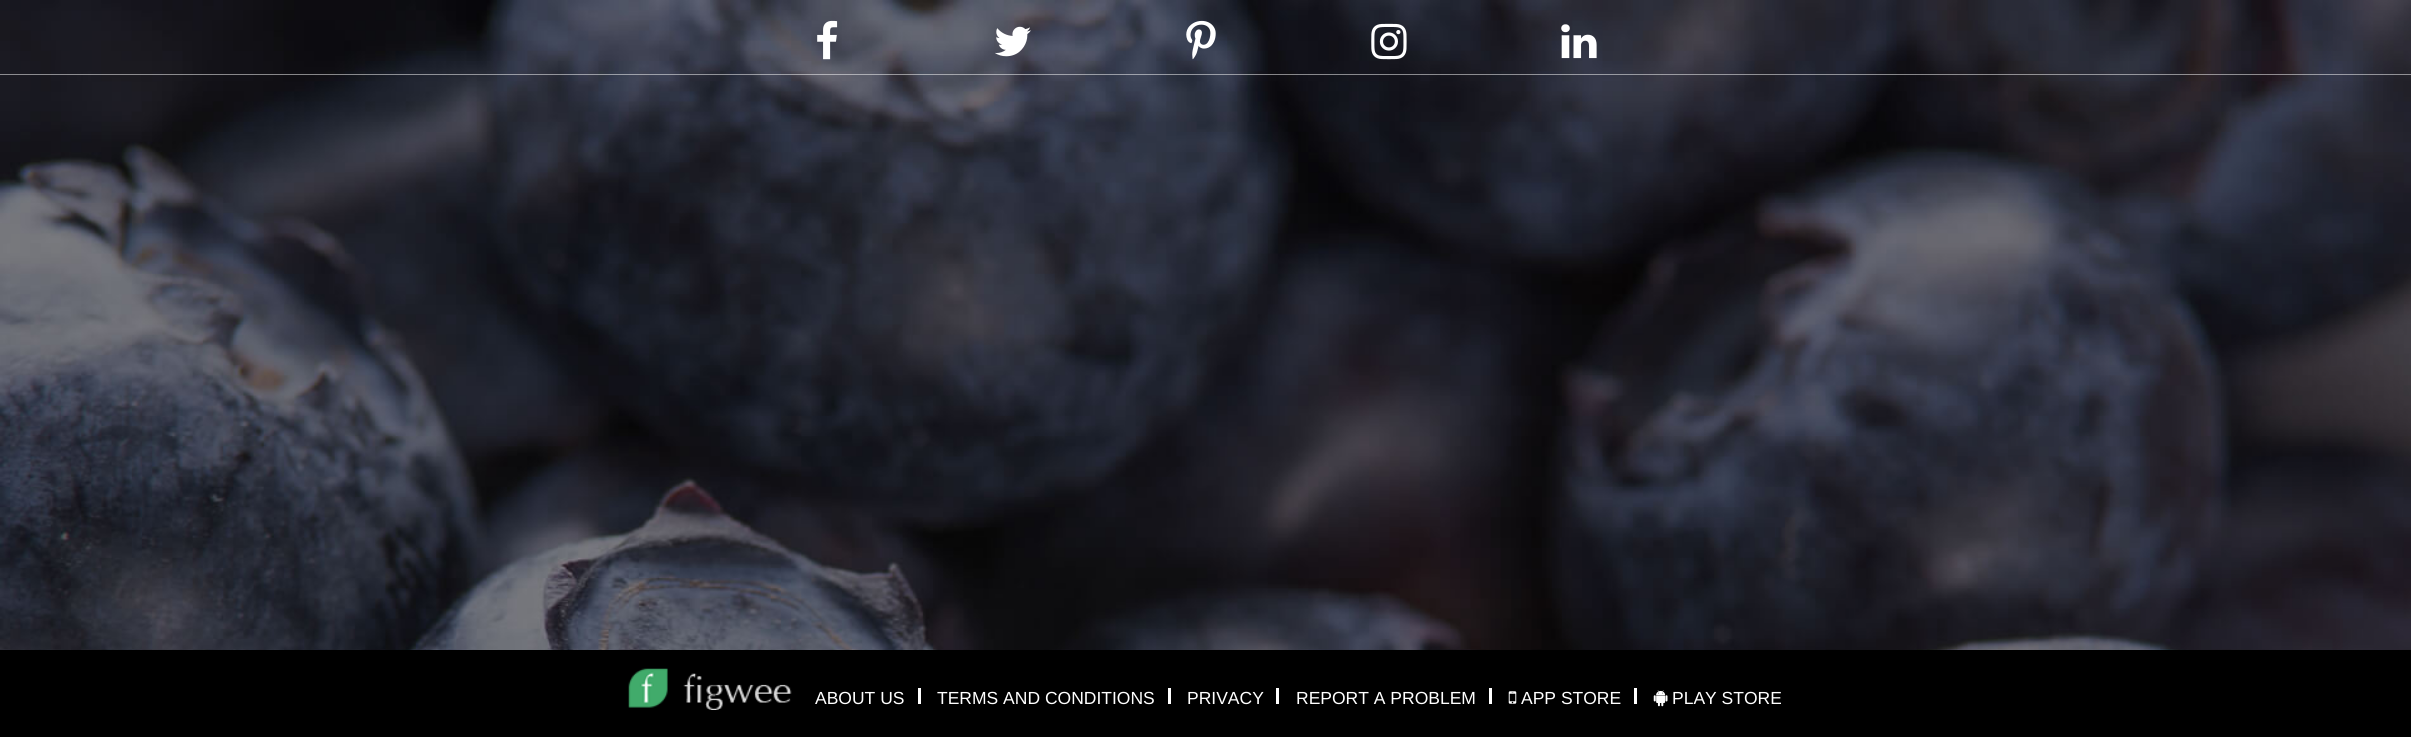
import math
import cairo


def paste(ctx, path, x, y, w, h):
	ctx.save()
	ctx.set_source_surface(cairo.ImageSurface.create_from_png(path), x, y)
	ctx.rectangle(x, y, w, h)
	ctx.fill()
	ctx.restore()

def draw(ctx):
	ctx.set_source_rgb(1, 1, 1)
	ctx.paint()
	paste(ctx, 'media/1.png', 0, 0, 2411, 650)
	ctx.set_source_rgba(1, 1, 1, 0.5)
	ctx.rectangle(0, 74, 2411, 1)
	ctx.fill()
	paste(ctx, 'media/2.png', 817, 20, 21, 40)
	paste(ctx, 'media/3.png', 995, 26, 36, 31)
	paste(ctx, 'media/4.png', 1186, 20, 30, 40)
	paste(ctx, 'media/5.png', 1371, 23, 36, 37)
	paste(ctx, 'media/6.png', 1561, 24, 36, 35)
	ctx.set_source_rgb(0, 0, 0)
	ctx.rectangle(0, 650, 2411, 87)
	ctx.fill()
	paste(ctx, 'media/7.png', 628, 668, 164, 42)
	ctx.select_font_face('Liberation Sans')
	ctx.set_font_size(17.5)
	ctx.set_source_rgb(1, 1, 1)
	ctx.move_to(815, 704)
	ctx.show_text('ABOUT US')
	ctx.rectangle(918, 688, 3, 16)
	ctx.fill()
	ctx.move_to(937, 704)
	ctx.show_text('TERMS AND CONDITIONS')
	ctx.rectangle(1168, 688, 3, 16)
	ctx.fill()
	ctx.move_to(1187, 704)
	ctx.show_text('PRIVACY')
	ctx.rectangle(1276, 688, 3, 16)
	ctx.fill()
	ctx.move_to(1296, 704)
	ctx.show_text('REPORT A PROBLEM')
	ctx.rectangle(1489, 688, 3, 16)
	ctx.fill()
	paste(ctx, 'media/8.png', 1508, 691, 9, 13)
	ctx.move_to(1521, 704)
	ctx.show_text('APP STORE')
	ctx.rectangle(1634, 688, 3, 16)
	ctx.fill()
	paste(ctx, 'media/9.png', 1653, 690, 15, 17)
	ctx.move_to(1672, 704)
	ctx.show_text('PLAY STORE')


surface = cairo.ImageSurface(cairo.FORMAT_RGB24, 2411, 737)
ctx = cairo.Context(surface)
options = cairo.FontOptions()
options.set_hint_metrics(cairo.HINT_METRICS_OFF)
options.set_hint_style(cairo.HINT_STYLE_NONE)
ctx.set_font_options(options)
ctx.set_miter_limit(4)
draw(ctx)
surface.write_to_png('image.png')
